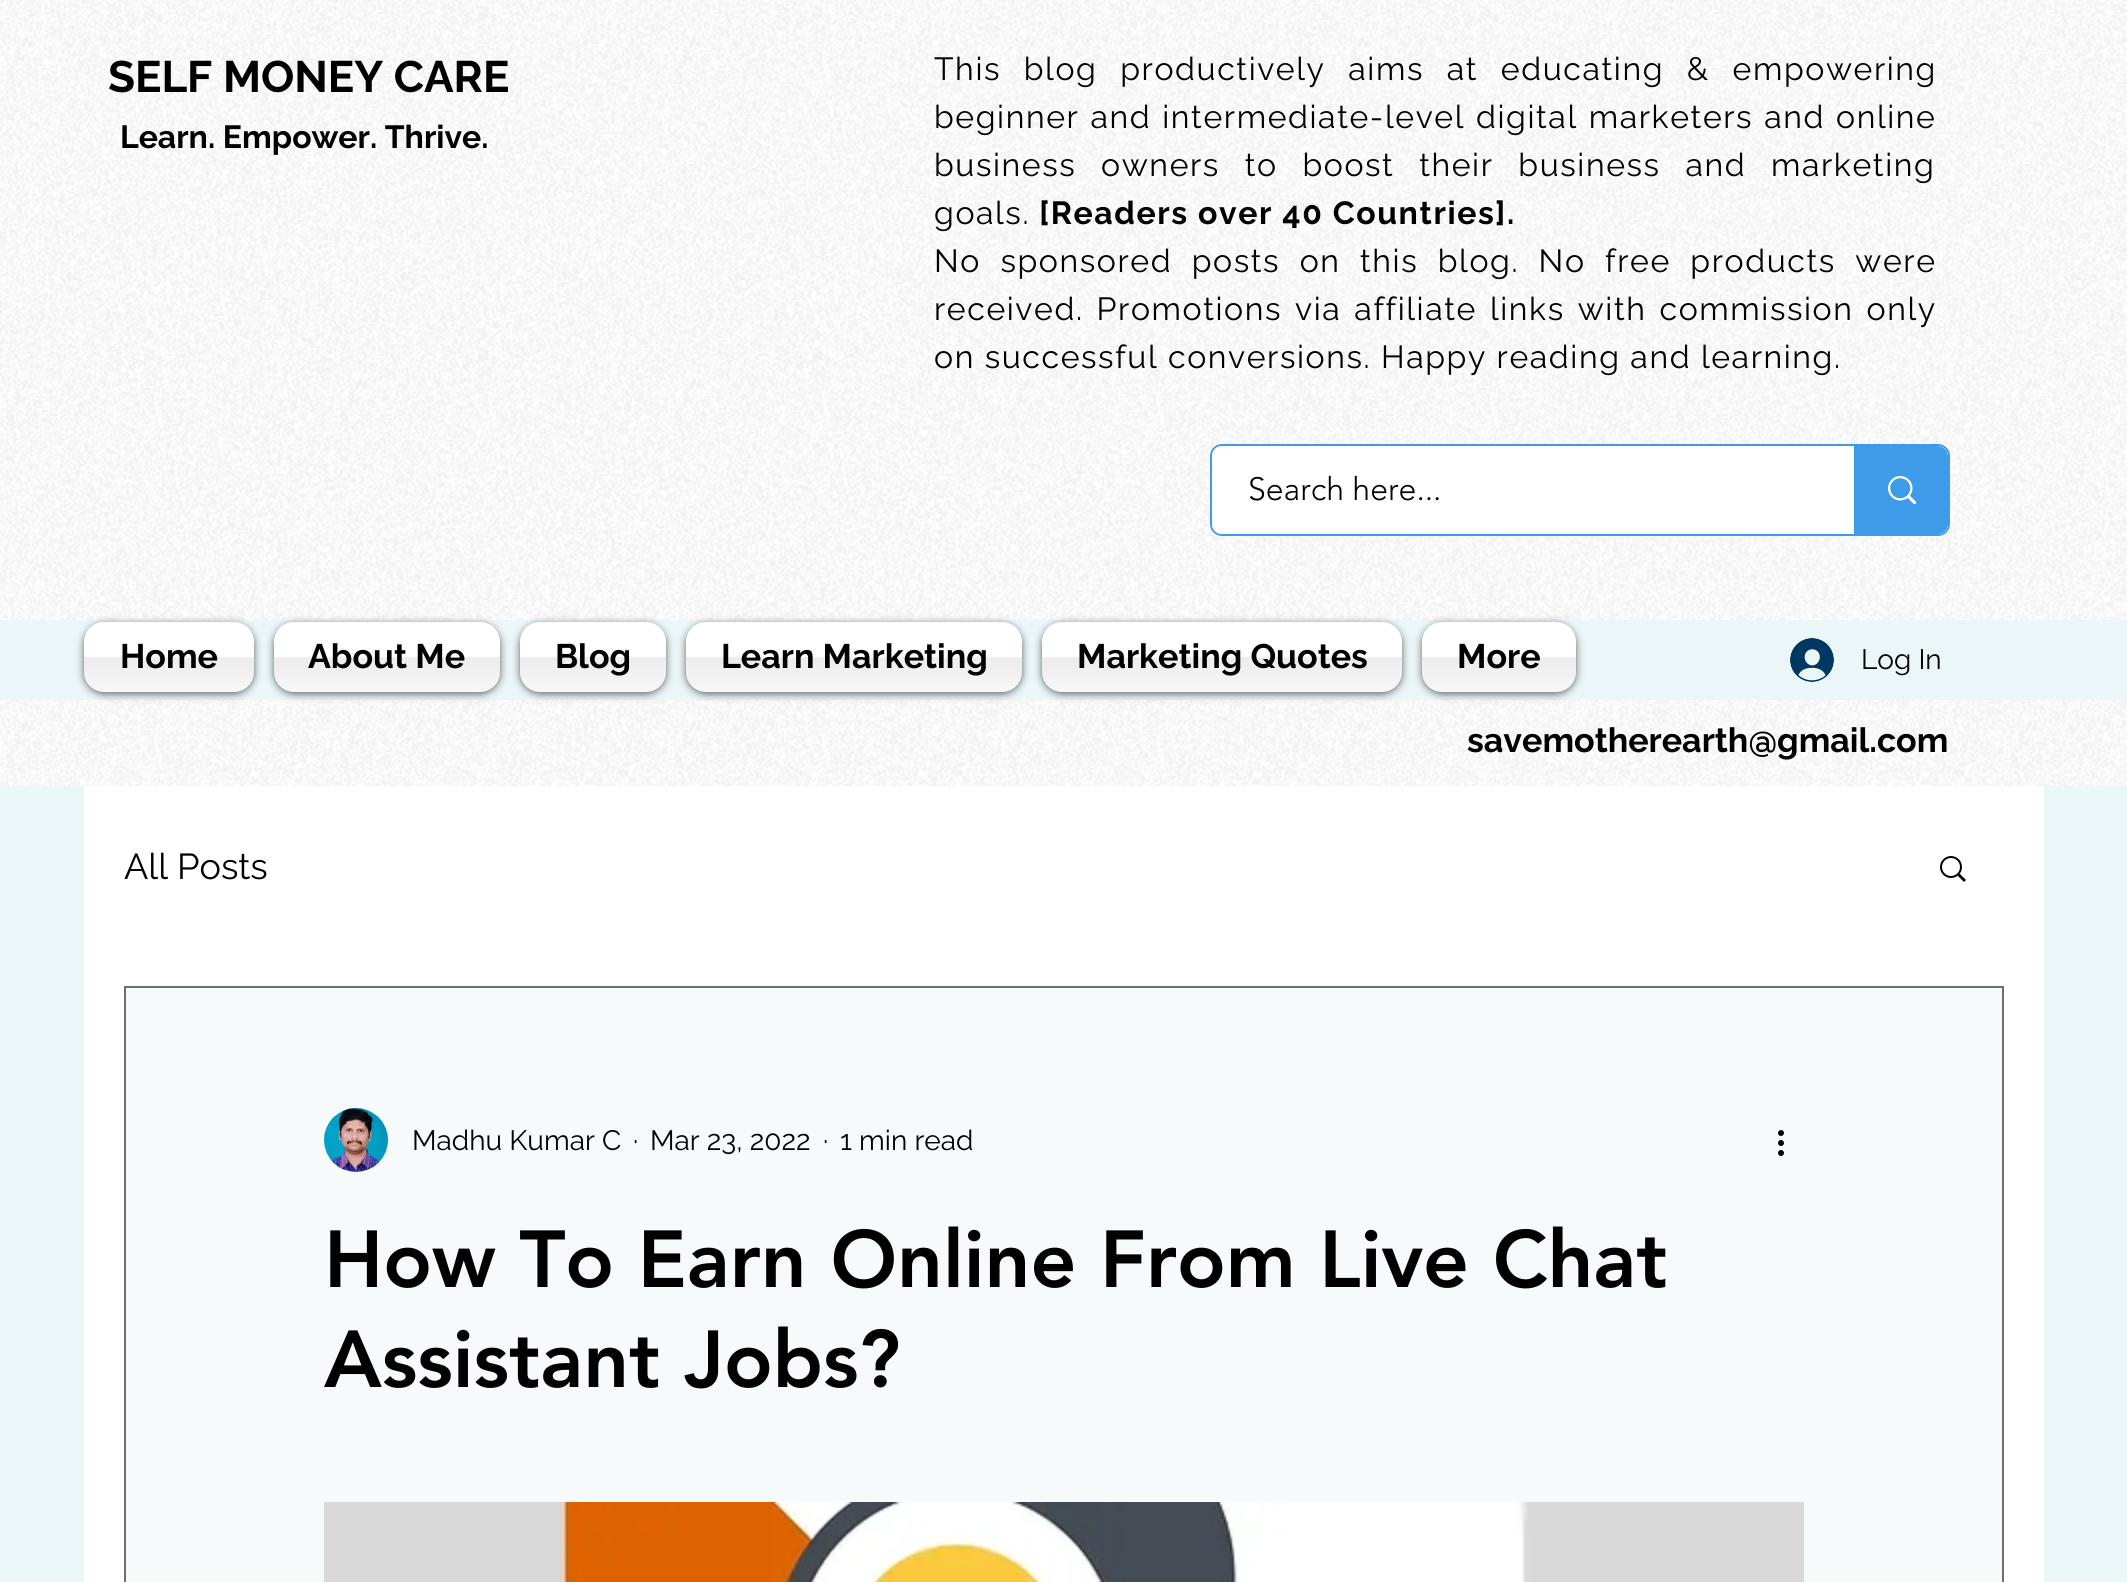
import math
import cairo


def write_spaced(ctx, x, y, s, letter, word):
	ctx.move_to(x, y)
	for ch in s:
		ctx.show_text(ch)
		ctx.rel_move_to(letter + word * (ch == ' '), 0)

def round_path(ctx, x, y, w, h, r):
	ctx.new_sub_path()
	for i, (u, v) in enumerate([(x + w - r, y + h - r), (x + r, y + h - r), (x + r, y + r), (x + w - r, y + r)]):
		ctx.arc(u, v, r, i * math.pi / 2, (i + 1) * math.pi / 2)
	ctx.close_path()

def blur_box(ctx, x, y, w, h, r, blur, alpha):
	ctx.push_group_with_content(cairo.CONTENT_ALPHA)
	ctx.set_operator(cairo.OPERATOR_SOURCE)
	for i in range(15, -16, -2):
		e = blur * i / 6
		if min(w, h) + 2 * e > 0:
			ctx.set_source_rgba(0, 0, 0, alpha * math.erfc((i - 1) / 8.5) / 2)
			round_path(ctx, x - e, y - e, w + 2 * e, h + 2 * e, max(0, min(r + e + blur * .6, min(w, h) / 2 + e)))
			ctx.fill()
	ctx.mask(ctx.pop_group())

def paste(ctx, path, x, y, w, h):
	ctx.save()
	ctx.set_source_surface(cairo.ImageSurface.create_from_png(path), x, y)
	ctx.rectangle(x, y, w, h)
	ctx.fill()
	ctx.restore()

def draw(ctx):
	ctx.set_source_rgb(0.918, 0.961, 0.969)
	ctx.paint()
	ctx.set_source_rgb(1, 1, 1)
	ctx.rectangle(0, 0, 2127, 786)
	ctx.fill()
	paste(ctx, 'media/1.png', 0, 0, 2127, 786)
	ctx.select_font_face('Raleway', cairo.FONT_SLANT_NORMAL, cairo.FONT_WEIGHT_BOLD)
	ctx.set_font_size(44)
	ctx.set_source_rgb(0, 0, 0)
	ctx.move_to(108, 92)
	ctx.show_text('SELF MONEY CARE')
	ctx.set_font_size(32)
	ctx.move_to(120, 148)
	ctx.show_text('Learn. Empower. Thrive.')
	ctx.select_font_face('Raleway')
	write_spaced(ctx, 934, 80, 'This blog productively aims at educating & empowering', 1.6, 13)
	write_spaced(ctx, 934, 128, 'beginner and intermediate-level digital marketers and online', 1.6, 1.25)
	write_spaced(ctx, 934, 176, 'business owners to boost their business and marketing', 1.6, 15)
	write_spaced(ctx, 934, 224, 'goals.', 1.6, 0)
	ctx.select_font_face('Raleway', cairo.FONT_SLANT_NORMAL, cairo.FONT_WEIGHT_BOLD)
	write_spaced(ctx, 1039, 224, '[Readers over 40 Countries].', 1.6, 0)
	ctx.select_font_face('Raleway')
	write_spaced(ctx, 934, 272, 'No sponsored posts on this blog. No free products were', 1.6, 9.75)
	write_spaced(ctx, 934, 320, 'received. Promotions via affiliate links with commission only', 1.6, 3.25)
	write_spaced(ctx, 934, 368, 'on successful conversions. Happy reading and learning.', 1.6, 0)
	round_path(ctx, 1211, 445, 738, 90, 11)
	ctx.set_source_rgb(0.239, 0.608, 0.914)
	ctx.stroke()
	ctx.set_source_rgb(1, 1, 1)
	round_path(ctx, 1212, 446, 736, 88, 10)
	ctx.fill()
	ctx.select_font_face('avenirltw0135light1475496 Light')
	ctx.set_source_rgb(0, 0, 0)
	ctx.move_to(1248, 500)
	ctx.show_text('Search here...')
	ctx.set_source_rgb(0.239, 0.608, 0.914)
	ctx.new_path()
	ctx.move_to(1854, 446)
	ctx.line_to(1938, 446)
	ctx.curve_to(1943.5, 446, 1948, 450.5, 1948, 456)
	ctx.line_to(1948, 524)
	ctx.curve_to(1948, 529.5, 1943.5, 534, 1938, 534)
	ctx.line_to(1854, 534)
	ctx.close_path()
	ctx.fill()
	paste(ctx, 'media/2.png', 1888, 476, 28, 28)
	ctx.set_source_rgb(0.918, 0.961, 0.969)
	ctx.rectangle(0, 620, 2127, 80)
	ctx.fill()
	ctx.set_source_rgb(0, 0, 0)
	blur_box(ctx, 84, 624, 170, 70, 20, 4, 0.6)
	ctx.set_source_rgb(1, 1, 1)
	round_path(ctx, 84, 622, 170, 70, 20)
	ctx.fill()
	paste(ctx, 'media/3.png', 84, 625, 170, 67)
	ctx.select_font_face('Raleway', cairo.FONT_SLANT_NORMAL, cairo.FONT_WEIGHT_BOLD)
	ctx.set_font_size(34)
	ctx.set_source_rgb(0, 0, 0)
	ctx.move_to(120, 668)
	ctx.show_text('Home')
	ctx.set_source_rgb(0, 0, 0)
	blur_box(ctx, 274, 624, 226, 70, 20, 4, 0.6)
	ctx.set_source_rgb(1, 1, 1)
	round_path(ctx, 274, 622, 226, 70, 20)
	ctx.fill()
	paste(ctx, 'media/4.png', 274, 625, 226, 67)
	ctx.set_source_rgb(0, 0, 0)
	ctx.move_to(308, 668)
	ctx.show_text('About Me')
	ctx.set_source_rgb(0, 0, 0)
	blur_box(ctx, 520, 624, 146, 70, 20, 4, 0.6)
	ctx.set_source_rgb(1, 1, 1)
	round_path(ctx, 520, 622, 146, 70, 20)
	ctx.fill()
	paste(ctx, 'media/5.png', 520, 625, 146, 67)
	ctx.set_source_rgb(0, 0, 0)
	ctx.move_to(555, 668)
	ctx.show_text('Blog')
	ctx.set_source_rgb(0, 0, 0)
	blur_box(ctx, 686, 624, 336, 70, 20, 4, 0.6)
	ctx.set_source_rgb(1, 1, 1)
	round_path(ctx, 686, 622, 336, 70, 20)
	ctx.fill()
	paste(ctx, 'media/6.png', 686, 625, 336, 67)
	ctx.set_source_rgb(0, 0, 0)
	ctx.move_to(721, 668)
	ctx.show_text('Learn Marketing')
	ctx.set_source_rgb(0, 0, 0)
	blur_box(ctx, 1042, 624, 360, 70, 20, 4, 0.6)
	ctx.set_source_rgb(1, 1, 1)
	round_path(ctx, 1042, 622, 360, 70, 20)
	ctx.fill()
	paste(ctx, 'media/7.png', 1042, 625, 360, 67)
	ctx.set_source_rgb(0, 0, 0)
	ctx.move_to(1077, 668)
	ctx.show_text('Marketing Quotes')
	ctx.set_source_rgb(0, 0, 0)
	blur_box(ctx, 1422, 624, 154, 70, 20, 4, 0.6)
	ctx.set_source_rgb(1, 1, 1)
	round_path(ctx, 1422, 622, 154, 70, 20)
	ctx.fill()
	paste(ctx, 'media/8.png', 1422, 625, 154, 67)
	ctx.set_source_rgb(0, 0, 0)
	ctx.move_to(1457, 668)
	ctx.show_text('More')
	paste(ctx, 'media/9.png', 1790, 638, 44, 44)
	ctx.select_font_face('Raleway')
	ctx.set_font_size(28)
	ctx.move_to(1861, 669)
	ctx.show_text('Log In')
	ctx.select_font_face('Raleway', cairo.FONT_SLANT_NORMAL, cairo.FONT_WEIGHT_BOLD)
	ctx.set_font_size(34)
	ctx.move_to(1467, 752)
	ctx.show_text('savemotherearth@gmail.com')
	ctx.set_source_rgb(1, 1, 1)
	ctx.rectangle(84, 786, 1960, 796)
	ctx.fill()
	ctx.select_font_face('Raleway')
	ctx.set_font_size(36)
	ctx.set_source_rgb(0, 0, 0)
	ctx.move_to(124, 879)
	ctx.show_text('All Posts')
	paste(ctx, 'media/10.png', 1940, 856, 26, 26)
	ctx.set_source_rgb(0.961, 0.98, 0.984)
	ctx.rectangle(125, 987, 1878, 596)
	ctx.fill_preserve()
	ctx.set_source_rgb(0.427, 0.435, 0.435)
	ctx.stroke()
	paste(ctx, 'media/11.png', 324, 1108, 64, 64)
	ctx.set_font_size(28)
	ctx.set_source_rgb(0, 0, 0)
	for x, y, s in [
		(412, 1150, 'Madhu Kumar C'),
		(633, 1150, '·'),
		(650, 1150, 'Mar 23, 2022'),
		(823, 1150, '·'),
		(840, 1150, '1 min read'),
	]:
		ctx.move_to(x, y)
		ctx.show_text(s)
	paste(ctx, 'media/12.png', 1778, 1130, 6, 26)
	ctx.select_font_face('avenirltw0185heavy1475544 Black')
	ctx.set_font_size(80)
	ctx.move_to(324, 1287)
	ctx.show_text('How To Earn Online From Live Chat')
	ctx.move_to(324, 1387)
	ctx.show_text('Assistant Jobs?')
	paste(ctx, 'media/13.png', 324, 1502, 1480, 80)


surface = cairo.ImageSurface(cairo.FORMAT_RGB24, 2127, 1582)
ctx = cairo.Context(surface)
options = cairo.FontOptions()
options.set_hint_metrics(cairo.HINT_METRICS_OFF)
options.set_hint_style(cairo.HINT_STYLE_NONE)
ctx.set_font_options(options)
ctx.set_miter_limit(4)
draw(ctx)
surface.write_to_png('image.png')
